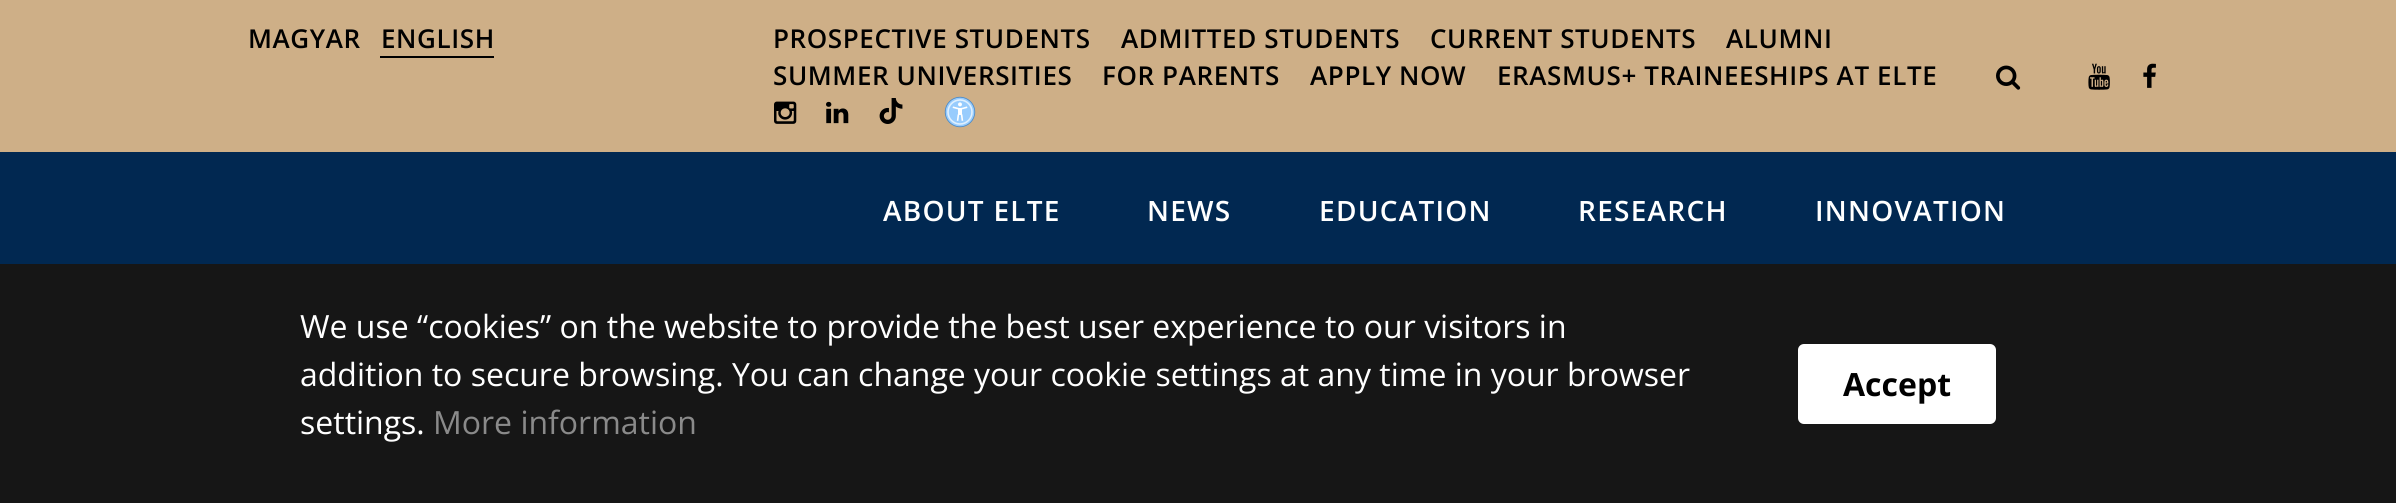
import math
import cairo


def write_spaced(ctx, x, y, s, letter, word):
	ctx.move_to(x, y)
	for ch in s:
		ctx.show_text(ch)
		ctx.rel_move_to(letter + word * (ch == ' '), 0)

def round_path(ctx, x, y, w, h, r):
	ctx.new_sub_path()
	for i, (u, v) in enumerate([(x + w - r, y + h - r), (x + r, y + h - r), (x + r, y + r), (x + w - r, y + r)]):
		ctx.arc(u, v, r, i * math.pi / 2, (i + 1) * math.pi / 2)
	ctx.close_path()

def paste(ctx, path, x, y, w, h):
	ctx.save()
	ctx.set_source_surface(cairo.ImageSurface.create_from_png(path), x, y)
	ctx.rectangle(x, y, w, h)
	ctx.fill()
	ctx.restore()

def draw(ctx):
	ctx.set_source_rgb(0.808, 0.686, 0.529)
	ctx.paint()
	ctx.select_font_face('Open Sans SemiBold')
	ctx.set_font_size(26)
	ctx.set_source_rgb(0, 0, 0)
	write_spaced(ctx, 248, 48, 'MAGYAR', 0.6, 0)
	write_spaced(ctx, 381, 48, 'ENGLISH', 0.6, 0)
	ctx.rectangle(380, 56, 114, 2)
	ctx.fill()
	for x, y, s in [
		(773, 48, 'PROSPECTIVE STUDENTS'),
		(1121, 48, 'ADMITTED STUDENTS'),
		(1430, 48, 'CURRENT STUDENTS'),
		(1726, 48, 'ALUMNI'),
		(773, 85, 'SUMMER UNIVERSITIES'),
		(1102, 85, 'FOR PARENTS'),
		(1310, 85, 'APPLY NOW'),
		(1497, 85, 'ERASMUS+ TRAINEESHIPS AT ELTE'),
	]:
		write_spaced(ctx, x, y, s, 0.6, 0)
	paste(ctx, 'media/1.png', 1996, 65, 25, 25)
	paste(ctx, 'media/2.png', 2088, 63, 22, 27)
	paste(ctx, 'media/3.png', 2143, 63, 13, 25)
	paste(ctx, 'media/4.png', 774, 101, 23, 23)
	paste(ctx, 'media/5.png', 826, 101, 23, 23)
	paste(ctx, 'media/6.png', 879, 98, 24, 26)
	paste(ctx, 'media/7.png', 944, 96, 32, 32)
	ctx.set_source_rgb(0.004, 0.157, 0.318)
	ctx.rectangle(0, 152, 2396, 112)
	ctx.fill()
	ctx.set_font_size(28)
	ctx.set_source_rgb(1, 1, 1)
	for x, y, s in [
		(883, 221, 'ABOUT ELTE'),
		(1147, 221, 'NEWS'),
		(1319, 221, 'EDUCATION'),
		(1578, 221, 'RESEARCH'),
		(1815, 221, 'INNOVATION'),
	]:
		write_spaced(ctx, x, y, s, 1.25, 0)
	ctx.set_source_rgb(0.086, 0.086, 0.086)
	ctx.rectangle(0, 264, 2396, 239)
	ctx.fill()
	ctx.select_font_face('Open Sans')
	ctx.set_font_size(32)
	ctx.set_source_rgb(1, 1, 1)
	for x, y, s in [
		(300, 338, 'We use “cookies” on the website to provide the best user experience to our visitors in'),
		(300, 386, 'addition to secure browsing. You can change your cookie settings at any time in your browser'),
		(300, 434, 'settings.'),
	]:
		ctx.move_to(x, y)
		ctx.show_text(s)
	ctx.set_source_rgb(0.541, 0.541, 0.541)
	ctx.move_to(433, 434)
	ctx.show_text('More information')
	ctx.set_source_rgb(1, 1, 1)
	round_path(ctx, 1798, 344, 198, 80, 6)
	ctx.fill()
	ctx.select_font_face('Open Sans', cairo.FONT_SLANT_NORMAL, cairo.FONT_WEIGHT_BOLD)
	ctx.set_source_rgb(0, 0, 0)
	ctx.move_to(1843, 396)
	ctx.show_text('Accept')


surface = cairo.ImageSurface(cairo.FORMAT_RGB24, 2396, 503)
ctx = cairo.Context(surface)
options = cairo.FontOptions()
options.set_hint_metrics(cairo.HINT_METRICS_OFF)
options.set_hint_style(cairo.HINT_STYLE_NONE)
ctx.set_font_options(options)
ctx.set_miter_limit(4)
draw(ctx)
surface.write_to_png('image.png')
